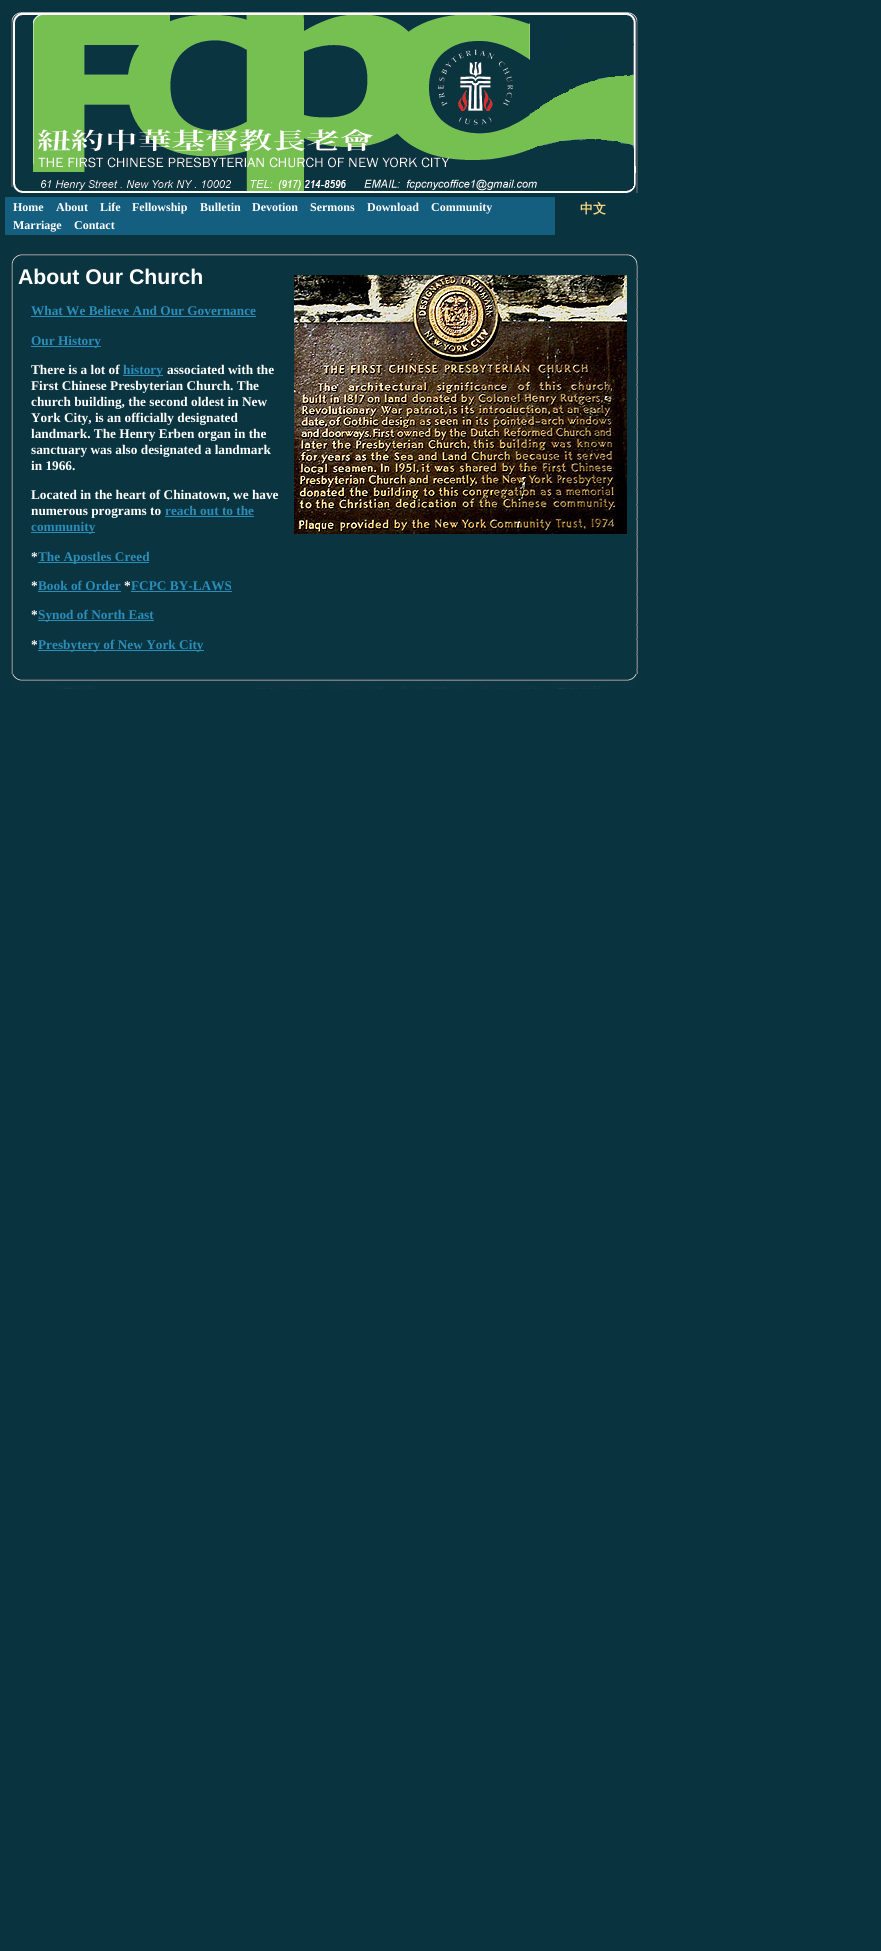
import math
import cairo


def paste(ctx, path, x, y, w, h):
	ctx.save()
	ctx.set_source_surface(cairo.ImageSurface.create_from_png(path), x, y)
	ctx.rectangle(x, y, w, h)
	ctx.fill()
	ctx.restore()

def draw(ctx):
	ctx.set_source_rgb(0.039, 0.204, 0.247)
	ctx.paint()
	paste(ctx, 'media/1.png', 11, 12, 627, 181)
	ctx.set_source_rgb(0.082, 0.369, 0.498)
	ctx.rectangle(5, 197, 550, 38)
	ctx.fill()
	ctx.select_font_face('Liberation Serif', cairo.FONT_SLANT_NORMAL, cairo.FONT_WEIGHT_BOLD)
	ctx.set_font_size(12)
	ctx.set_source_rgb(1, 1, 1)
	for x, y, s in [
		(13, 211, 'Home'),
		(56, 211, 'About'),
		(100, 211, 'Life'),
		(132, 211, 'Fellowship'),
		(200, 211, 'Bulletin'),
		(252, 211, 'Devotion'),
		(310, 211, 'Sermons'),
		(367, 211, 'Download'),
		(431, 211, 'Community'),
		(13, 229, 'Marriage'),
		(74, 229, 'Contact'),
	]:
		ctx.move_to(x, y)
		ctx.show_text(s)
	ctx.select_font_face('WenQuanYi Zen Hei', cairo.FONT_SLANT_NORMAL, cairo.FONT_WEIGHT_BOLD)
	ctx.set_font_size(13)
	ctx.set_source_rgb(1, 0.847, 0.514)
	ctx.move_to(580, 213)
	ctx.show_text('中文')
	paste(ctx, 'media/2.png', 11, 250, 627, 15)
	paste(ctx, 'media/3.png', 11, 265, 627, 409)
	ctx.select_font_face('Liberation Sans', cairo.FONT_SLANT_NORMAL, cairo.FONT_WEIGHT_BOLD)
	ctx.set_font_size(21.25)
	ctx.set_source_rgb(1, 1, 1)
	ctx.move_to(18, 284)
	ctx.show_text('About Our Church')
	paste(ctx, 'media/4.png', 294, 275, 333, 259)
	ctx.select_font_face('Liberation Serif', cairo.FONT_SLANT_NORMAL, cairo.FONT_WEIGHT_BOLD)
	ctx.set_font_size(13.3)
	ctx.set_source_rgb(0.165, 0.553, 0.729)
	ctx.move_to(31, 315)
	ctx.show_text('What We Believe And Our Governance')
	ctx.rectangle(31, 316, 225, 1)
	ctx.fill()
	ctx.rectangle(31, 346, 70, 1)
	ctx.fill()
	ctx.move_to(31, 345)
	ctx.show_text('Our History')
	ctx.set_source_rgb(1, 1, 1)
	ctx.move_to(31, 374)
	ctx.show_text('There is a lot of')
	ctx.set_source_rgb(0.165, 0.553, 0.729)
	ctx.rectangle(123, 375, 40, 1)
	ctx.fill()
	ctx.move_to(123, 374)
	ctx.show_text('history')
	ctx.set_source_rgb(1, 1, 1)
	for x, y, s in [
		(167, 374, 'associated with the'),
		(31, 390, 'First Chinese Presbyterian Church. The'),
		(31, 406, 'church building, the second oldest in New'),
		(31, 422, 'York City, is an officially designated'),
		(31, 438, 'landmark. The Henry Erben organ in the'),
		(31, 454, 'sanctuary was also designated a landmark'),
		(31, 470, 'in 1966.'),
		(31, 499, 'Located in the heart of Chinatown, we have'),
		(31, 515, 'numerous programs to'),
	]:
		ctx.move_to(x, y)
		ctx.show_text(s)
	ctx.set_source_rgb(0.165, 0.553, 0.729)
	ctx.move_to(165, 515)
	ctx.show_text('reach out to the')
	ctx.rectangle(165, 516, 89, 1)
	ctx.fill()
	ctx.rectangle(31, 532, 64, 1)
	ctx.fill()
	ctx.move_to(31, 531)
	ctx.show_text('community')
	ctx.set_source_rgb(1, 1, 1)
	ctx.move_to(31, 561)
	ctx.show_text('*')
	ctx.set_source_rgb(0.165, 0.553, 0.729)
	ctx.rectangle(38, 562, 111, 1)
	ctx.fill()
	ctx.move_to(38, 561)
	ctx.show_text('The Apostles Creed')
	ctx.set_source_rgb(1, 1, 1)
	ctx.move_to(31, 590)
	ctx.show_text('*')
	ctx.set_source_rgb(0.165, 0.553, 0.729)
	ctx.move_to(38, 590)
	ctx.show_text('Book of Order')
	ctx.rectangle(38, 591, 83, 1)
	ctx.fill()
	ctx.set_source_rgb(1, 1, 1)
	ctx.move_to(124, 590)
	ctx.show_text('*')
	ctx.set_source_rgb(0.165, 0.553, 0.729)
	ctx.move_to(131, 590)
	ctx.show_text('FCPC BY-LAWS')
	ctx.rectangle(131, 591, 101, 1)
	ctx.fill()
	ctx.set_source_rgb(1, 1, 1)
	ctx.move_to(31, 619)
	ctx.show_text('*')
	ctx.set_source_rgb(0.165, 0.553, 0.729)
	ctx.rectangle(38, 620, 116, 1)
	ctx.fill()
	ctx.move_to(38, 619)
	ctx.show_text('Synod of North East')
	ctx.set_source_rgb(1, 1, 1)
	ctx.move_to(31, 649)
	ctx.show_text('*')
	ctx.set_source_rgb(0.165, 0.553, 0.729)
	ctx.rectangle(38, 650, 166, 1)
	ctx.fill()
	ctx.move_to(38, 649)
	ctx.show_text('Presbytery of New York City')
	paste(ctx, 'media/5.png', 12, 674, 625, 15)


surface = cairo.ImageSurface(cairo.FORMAT_RGB24, 881, 1951)
ctx = cairo.Context(surface)
options = cairo.FontOptions()
options.set_hint_metrics(cairo.HINT_METRICS_OFF)
options.set_hint_style(cairo.HINT_STYLE_NONE)
ctx.set_font_options(options)
ctx.set_miter_limit(4)
draw(ctx)
surface.write_to_png('image.png')
